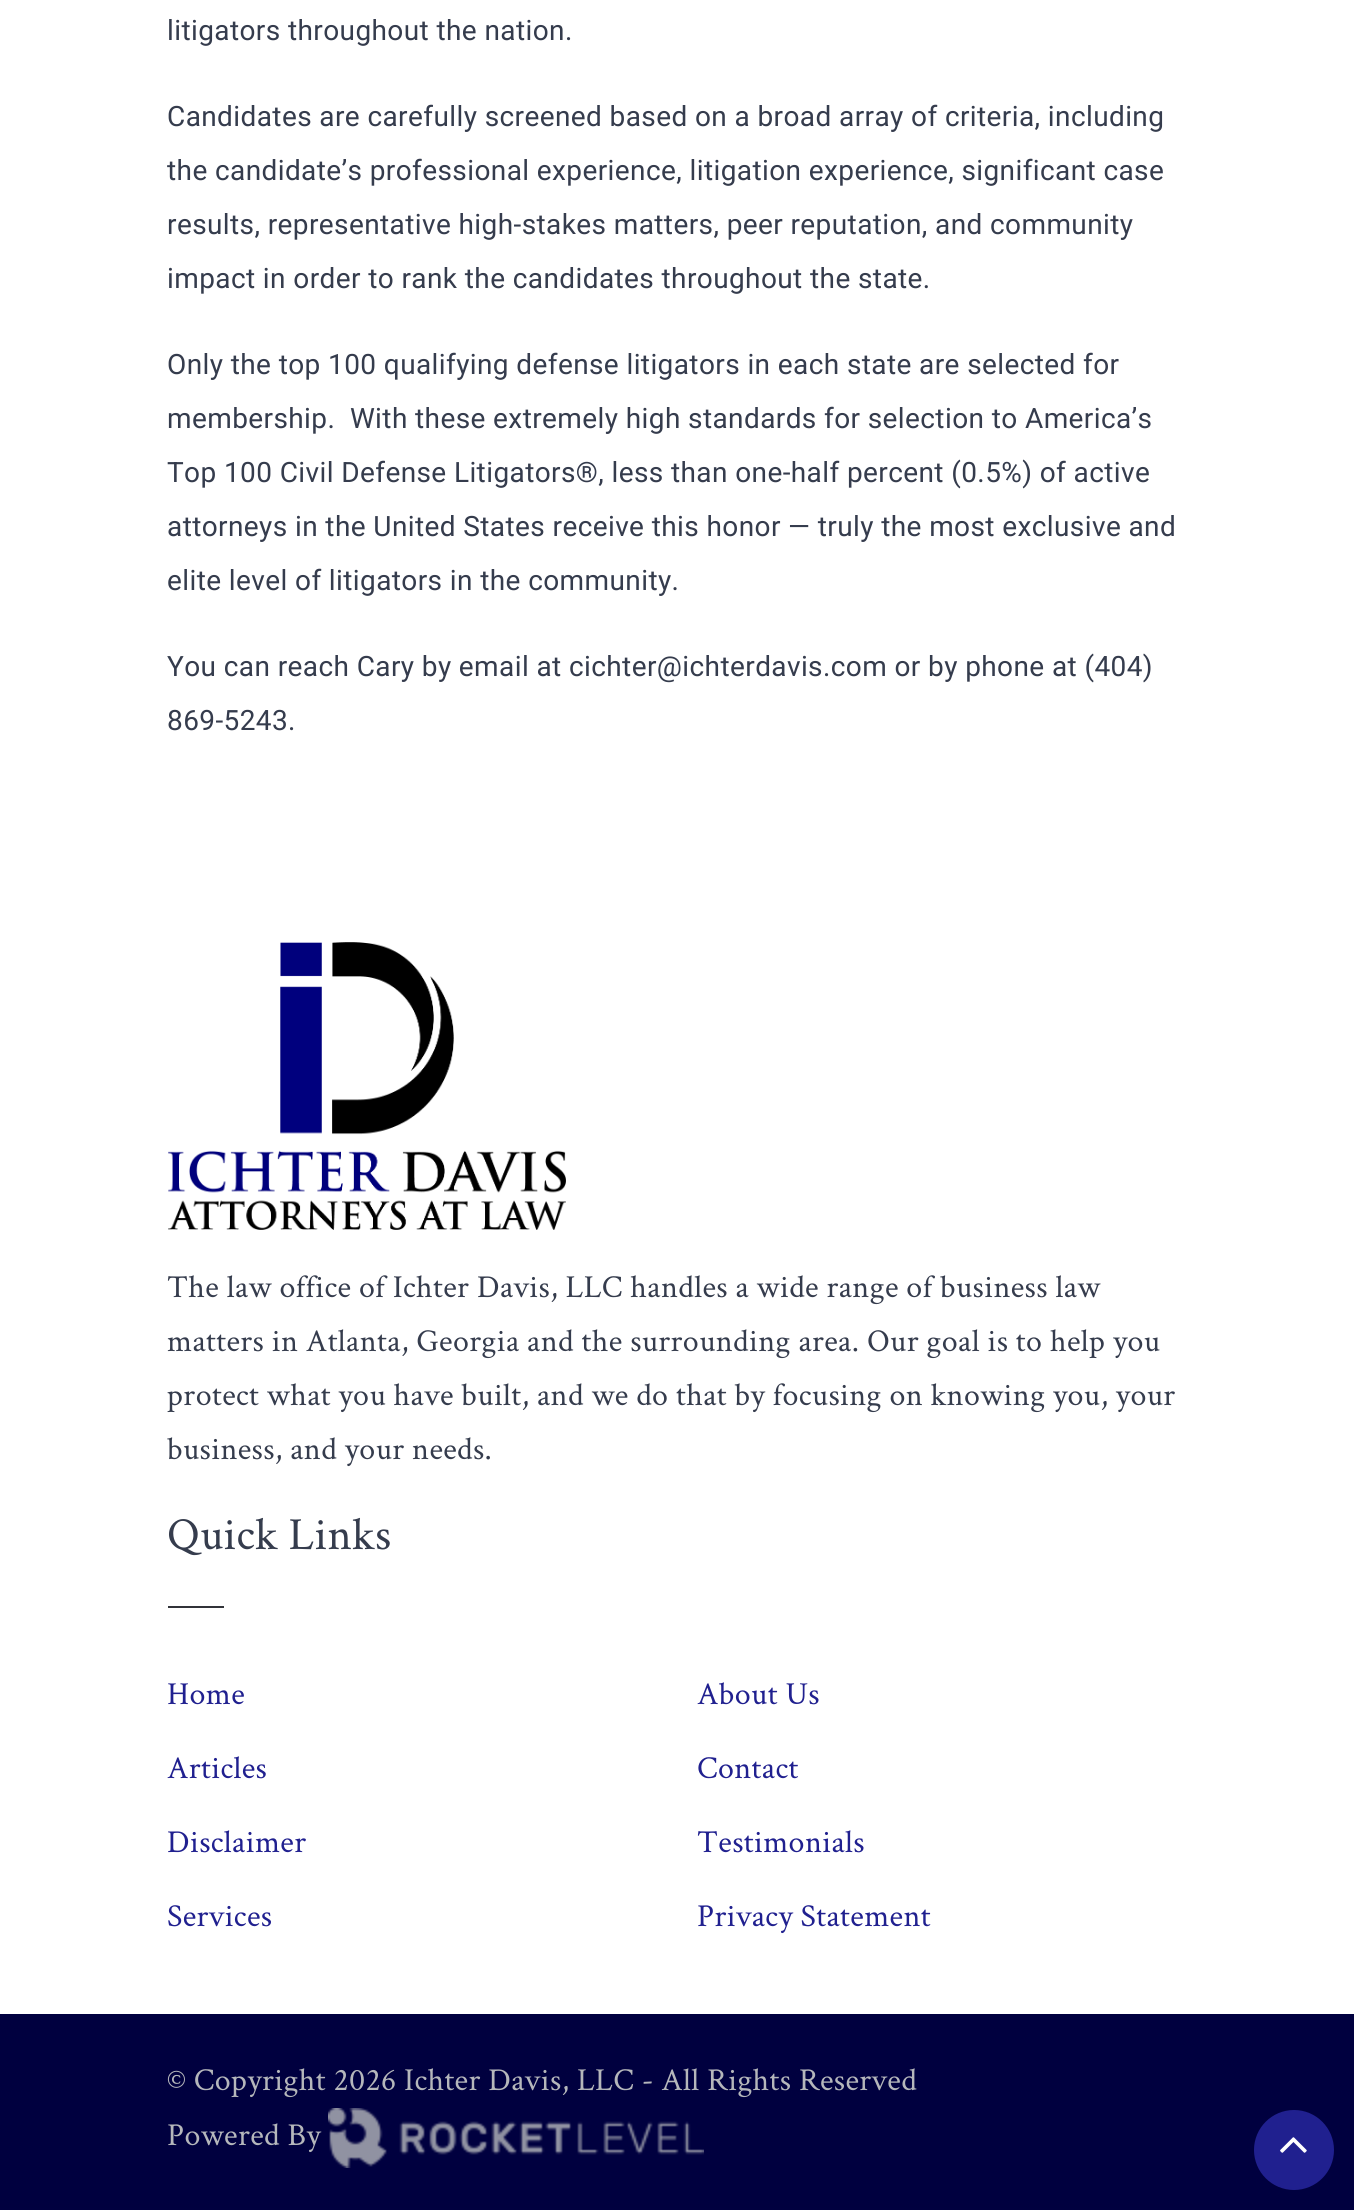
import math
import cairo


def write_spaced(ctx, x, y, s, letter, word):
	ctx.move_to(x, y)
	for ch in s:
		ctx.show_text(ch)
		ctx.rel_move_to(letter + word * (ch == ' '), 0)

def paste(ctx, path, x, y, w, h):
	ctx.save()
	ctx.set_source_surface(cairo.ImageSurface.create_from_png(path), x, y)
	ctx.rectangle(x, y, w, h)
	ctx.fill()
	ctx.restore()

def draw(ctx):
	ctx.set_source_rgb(1, 1, 1)
	ctx.paint()
	ctx.select_font_face('Roboto')
	ctx.set_font_size(28)
	ctx.set_source_rgb(0.208, 0.235, 0.302)
	for x, y, s in [
		(167, 40, 'litigators throughout the nation.'),
		(167, 126, 'Candidates are carefully screened based on a broad array of criteria, including'),
		(167, 180, 'the candidate’s professional experience, litigation experience, significant case'),
		(167, 234, 'results, representative high-stakes matters, peer reputation, and community'),
		(167, 288, 'impact in order to rank the candidates throughout the state.'),
		(167, 374, 'Only the top 100 qualifying defense litigators in each state are selected for'),
		(167, 428, 'membership.  With these extremely high standards for selection to America’s'),
		(167, 482, 'Top 100 Civil Defense Litigators®, less than one-half percent (0.5%) of active'),
		(167, 536, 'attorneys in the United States receive this honor — truly the most exclusive and'),
		(167, 590, 'elite level of litigators in the community.'),
		(167, 676, 'You can reach Cary by email at cichter@ichterdavis.com or by phone at (404)'),
		(167, 730, '869-5243.'),
	]:
		write_spaced(ctx, x, y, s, 0.4, 0)
	paste(ctx, 'media/1.png', 168, 942, 398, 288)
	ctx.select_font_face('Crimson Text')
	ctx.set_font_size(32)
	for x, y, s in [
		(167, 1297, 'The law office of Ichter Davis, LLC handles a wide range of business law'),
		(167, 1351, 'matters in Atlanta, Georgia and the surrounding area. Our goal is to help you'),
		(167, 1405, 'protect what you have built, and we do that by focusing on knowing you, your'),
		(167, 1459, 'business, and your needs.'),
	]:
		write_spaced(ctx, x, y, s, 0.4, 0)
	ctx.set_font_size(46)
	write_spaced(ctx, 167, 1549, 'Quick Links', 0.4, 0)
	ctx.set_source_rgb(0.192, 0.2, 0.224)
	ctx.rectangle(168, 1606, 56, 2)
	ctx.fill()
	ctx.set_font_size(32)
	ctx.set_source_rgb(0.125, 0.125, 0.561)
	for x, y, s in [
		(167, 1704, 'Home'),
		(697, 1704, 'About Us'),
		(167, 1778, 'Articles'),
		(697, 1778, 'Contact'),
		(167, 1852, 'Disclaimer'),
		(697, 1852, 'Testimonials'),
		(167, 1926, 'Services'),
		(697, 1926, 'Privacy Statement'),
	]:
		write_spaced(ctx, x, y, s, 0.4, 0)
	ctx.set_source_rgb(0, 0, 0.247)
	ctx.rectangle(0, 2014, 1354, 196)
	ctx.fill()
	ctx.set_source_rgb(0.71, 0.718, 0.733)
	write_spaced(ctx, 167, 2090, '© Copyright 2026 Ichter Davis, LLC - All Rights Reserved', 0.4, 0)
	write_spaced(ctx, 167, 2145, 'Powered By', 0.4, 0)
	paste(ctx, 'media/2.png', 328, 2108, 376, 60)
	ctx.set_source_rgb(0.125, 0.125, 0.561)
	ctx.arc(1294, 2150, 40, 0, 2 * math.pi)
	ctx.fill()
	paste(ctx, 'media/3.png', 1280, 2137, 27, 16)


surface = cairo.ImageSurface(cairo.FORMAT_RGB24, 1354, 2210)
ctx = cairo.Context(surface)
options = cairo.FontOptions()
options.set_hint_metrics(cairo.HINT_METRICS_OFF)
options.set_hint_style(cairo.HINT_STYLE_NONE)
ctx.set_font_options(options)
ctx.set_miter_limit(4)
draw(ctx)
surface.write_to_png('image.png')
